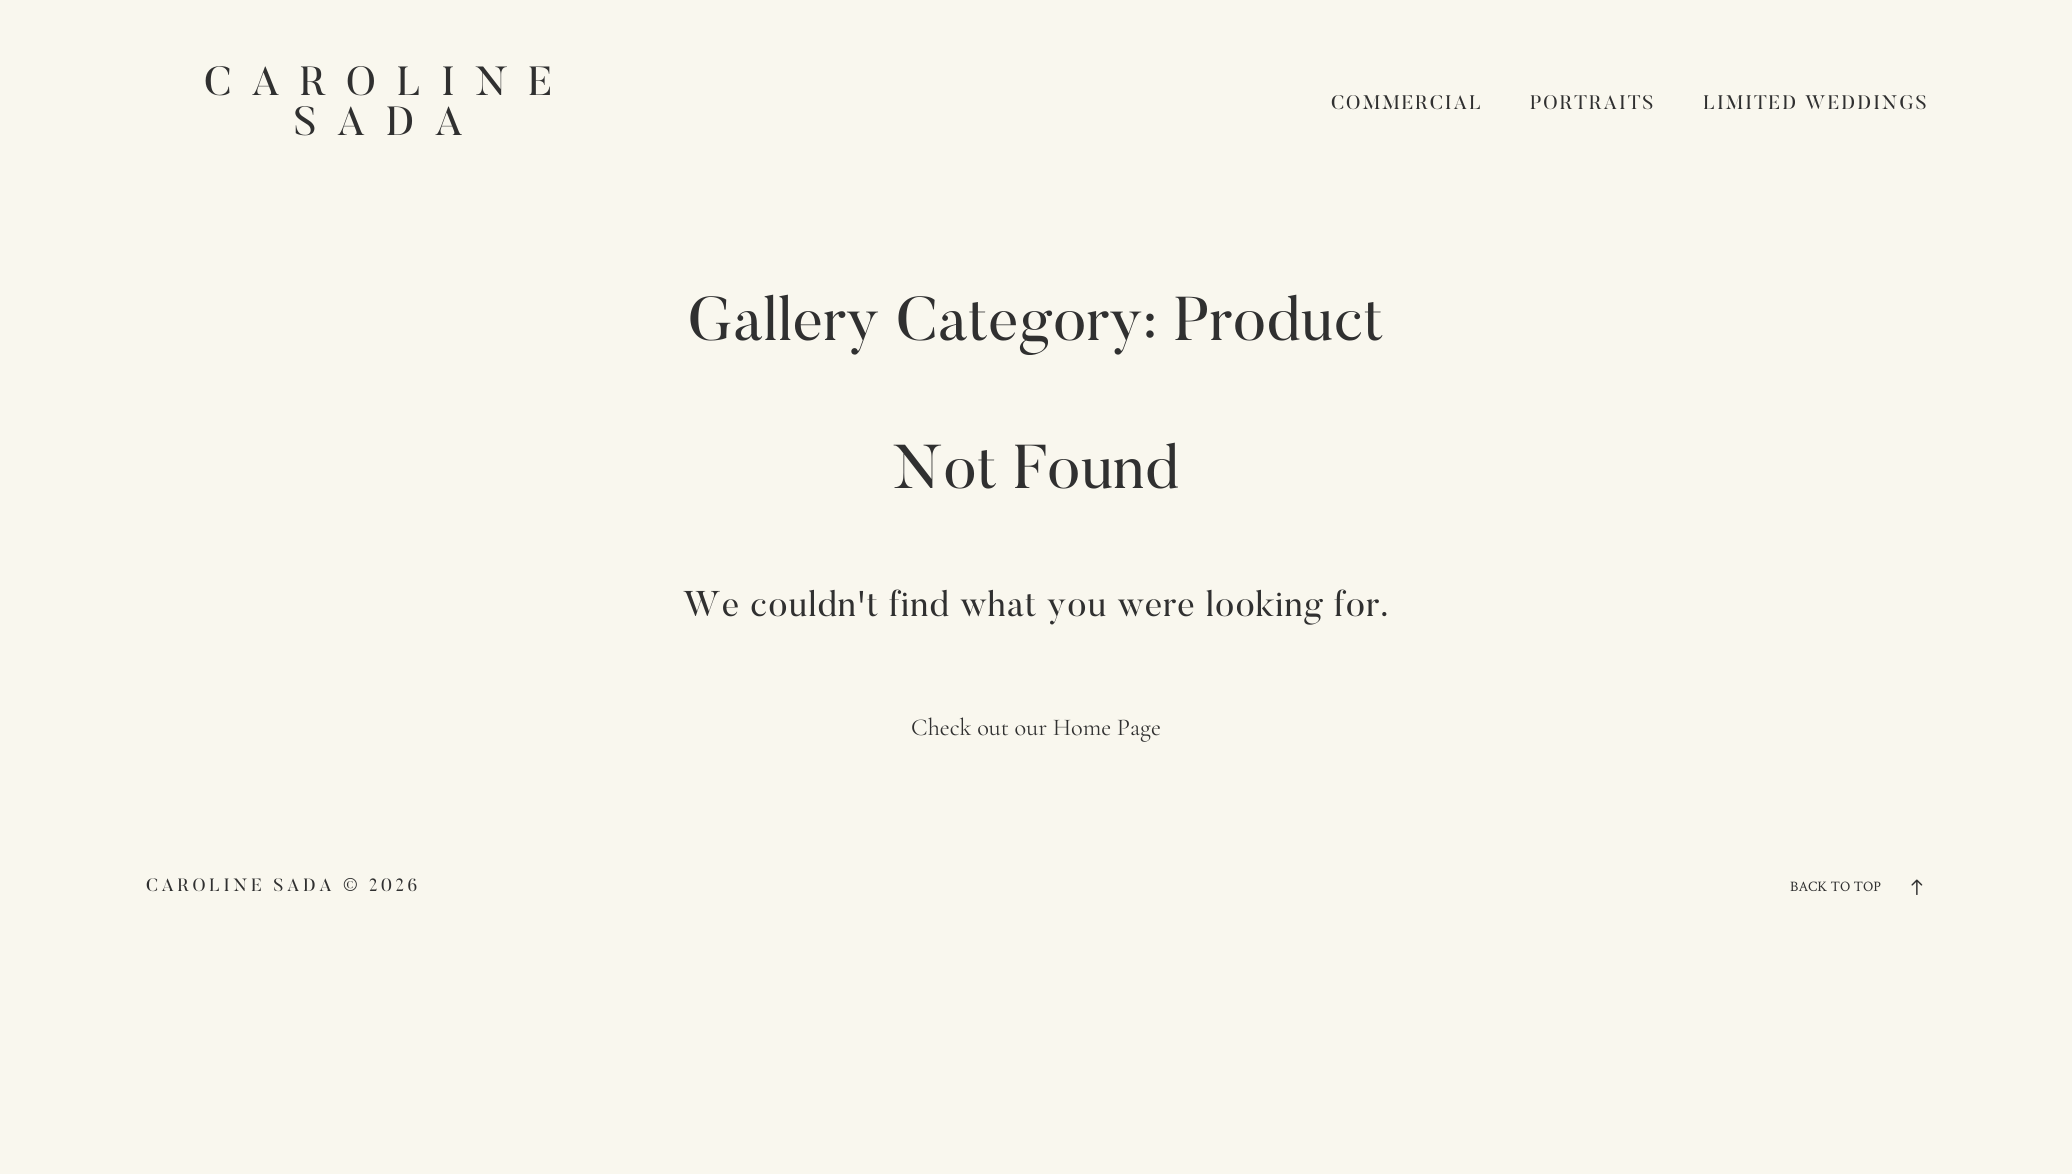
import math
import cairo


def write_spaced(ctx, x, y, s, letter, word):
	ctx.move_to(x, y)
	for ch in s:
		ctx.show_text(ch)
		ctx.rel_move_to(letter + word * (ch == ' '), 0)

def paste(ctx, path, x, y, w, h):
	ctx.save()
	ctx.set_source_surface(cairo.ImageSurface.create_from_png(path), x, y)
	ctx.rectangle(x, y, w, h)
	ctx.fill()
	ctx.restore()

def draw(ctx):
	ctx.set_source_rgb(0.973, 0.965, 0.933)
	ctx.paint()
	ctx.select_font_face('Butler')
	ctx.set_font_size(40.5)
	ctx.set_source_rgb(0.188, 0.188, 0.188)
	write_spaced(ctx, 204, 95, 'CAROLINE', 20.25, 0)
	write_spaced(ctx, 294, 135, 'SADA', 20.25, 0)
	ctx.set_font_size(19.5)
	for x, y, s in [
		(1331, 109, 'COMMERCIAL'),
		(1530, 109, 'PORTRAITS'),
		(1703, 109, 'LIMITED WEDDINGS'),
	]:
		write_spaced(ctx, x, y, s, 2, 0)
	ctx.set_font_size(61.5)
	write_spaced(ctx, 688, 340, 'Gallery Category: Product', 0.6, 0)
	write_spaced(ctx, 893, 488, 'Not Found', 0.6, 0)
	ctx.set_font_size(35.6)
	write_spaced(ctx, 683, 616, 'We couldn\'t find what you were looking for.', 1.05, 0)
	ctx.select_font_face('Cormorant Garamond')
	ctx.set_font_size(24.25)
	ctx.move_to(911, 735)
	ctx.show_text('Check out our Home Page')
	ctx.select_font_face('Butler')
	ctx.set_font_size(17.75)
	write_spaced(ctx, 146, 891, 'CAROLINE SADA © 2026', 3.6, 0)
	ctx.select_font_face('Crimson Text')
	ctx.set_font_size(14.5)
	ctx.move_to(1790, 891)
	ctx.show_text('BACK TO TOP')
	paste(ctx, 'media/1.png', 1911, 879, 12, 16)


surface = cairo.ImageSurface(cairo.FORMAT_RGB24, 2072, 1174)
ctx = cairo.Context(surface)
options = cairo.FontOptions()
options.set_hint_metrics(cairo.HINT_METRICS_OFF)
options.set_hint_style(cairo.HINT_STYLE_NONE)
ctx.set_font_options(options)
ctx.set_miter_limit(4)
draw(ctx)
surface.write_to_png('image.png')
